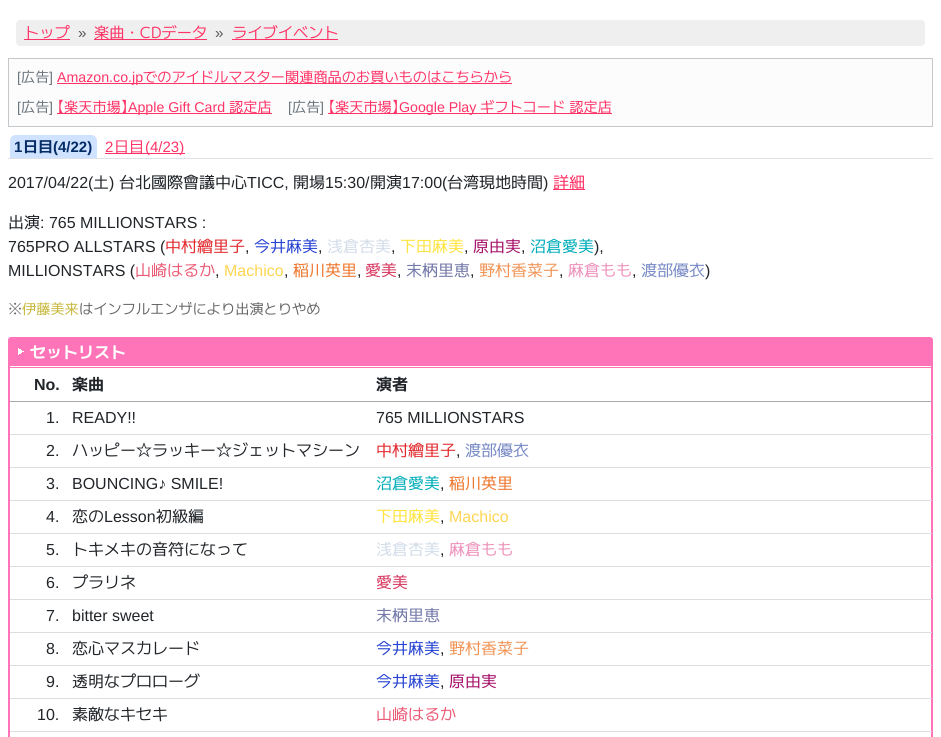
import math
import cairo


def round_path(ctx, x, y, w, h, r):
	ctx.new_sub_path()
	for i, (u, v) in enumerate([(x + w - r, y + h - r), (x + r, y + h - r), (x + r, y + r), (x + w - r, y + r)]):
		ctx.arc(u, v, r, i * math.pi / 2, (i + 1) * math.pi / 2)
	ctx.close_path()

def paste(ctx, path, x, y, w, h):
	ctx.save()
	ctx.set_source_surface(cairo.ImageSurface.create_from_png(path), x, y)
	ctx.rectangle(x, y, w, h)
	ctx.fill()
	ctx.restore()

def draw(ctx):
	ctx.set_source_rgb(1, 1, 1)
	ctx.paint()
	ctx.set_source_rgb(0.937, 0.937, 0.937)
	round_path(ctx, 16, 20, 909, 26, 4)
	ctx.fill()
	ctx.select_font_face('M PLUS 2')
	ctx.set_font_size(15.25)
	ctx.set_source_rgb(1, 0.2, 0.4)
	ctx.move_to(24, 38)
	ctx.show_text('トップ')
	ctx.rectangle(24, 39, 46, 1)
	ctx.fill()
	ctx.select_font_face('Liberation Sans')
	ctx.set_source_rgb(0.333, 0.345, 0.357)
	ctx.move_to(78, 38)
	ctx.show_text('»')
	ctx.set_source_rgb(1, 0.2, 0.4)
	ctx.rectangle(94, 39, 113, 1)
	ctx.fill()
	ctx.select_font_face('M PLUS 2')
	ctx.move_to(94, 38)
	ctx.show_text('楽曲・CDデータ')
	ctx.select_font_face('Liberation Sans')
	ctx.set_source_rgb(0.333, 0.345, 0.357)
	ctx.move_to(215, 38)
	ctx.show_text('»')
	ctx.select_font_face('M PLUS 2')
	ctx.set_source_rgb(1, 0.2, 0.4)
	ctx.move_to(232, 38)
	ctx.show_text('ライブイベント')
	ctx.rectangle(232, 39, 106, 1)
	ctx.fill()
	ctx.set_source_rgb(0.988, 0.988, 0.992)
	ctx.rectangle(8.5, 58.5, 924, 68)
	ctx.fill_preserve()
	ctx.set_source_rgb(0.769, 0.784, 0.796)
	ctx.set_line_width(1)
	ctx.stroke()
	ctx.select_font_face('Liberation Sans')
	ctx.set_font_size(14.2)
	ctx.set_source_rgb(0.424, 0.459, 0.49)
	ctx.move_to(17, 82)
	ctx.show_text('[')
	ctx.select_font_face('M PLUS 2')
	ctx.move_to(21, 82)
	ctx.show_text('広告')
	ctx.select_font_face('Liberation Sans')
	ctx.move_to(49, 82)
	ctx.show_text(']')
	ctx.set_source_rgb(1, 0.2, 0.4)
	ctx.rectangle(57, 83, 455, 1)
	ctx.fill()
	ctx.move_to(57, 82)
	ctx.show_text('Amazon.co.jp')
	ctx.select_font_face('M PLUS 2')
	ctx.move_to(143, 82)
	ctx.show_text('でのアイドルマスター関連商品のお買いものはこちらから')
	ctx.select_font_face('Liberation Sans')
	ctx.set_source_rgb(0.424, 0.459, 0.49)
	ctx.move_to(17, 112)
	ctx.show_text('[')
	ctx.select_font_face('M PLUS 2')
	ctx.move_to(21, 112)
	ctx.show_text('広告')
	ctx.select_font_face('Liberation Sans')
	ctx.move_to(49, 112)
	ctx.show_text(']')
	ctx.set_source_rgb(1, 0.2, 0.4)
	ctx.rectangle(57, 113, 215, 1)
	ctx.fill()
	ctx.select_font_face('BIZ UDPGothic')
	ctx.move_to(57, 112)
	ctx.show_text('【')
	ctx.select_font_face('M PLUS 2')
	ctx.move_to(64, 112)
	ctx.show_text('楽天市場')
	ctx.select_font_face('BIZ UDPGothic')
	ctx.move_to(121, 112)
	ctx.show_text('】')
	ctx.select_font_face('Liberation Sans')
	ctx.move_to(128, 112)
	ctx.show_text('Apple Gift Card')
	ctx.select_font_face('M PLUS 2')
	ctx.move_to(229, 112)
	ctx.show_text('認定店')
	ctx.select_font_face('Liberation Sans')
	ctx.set_source_rgb(0.424, 0.459, 0.49)
	ctx.move_to(288, 112)
	ctx.show_text('[')
	ctx.select_font_face('M PLUS 2')
	ctx.move_to(292, 112)
	ctx.show_text('広告')
	ctx.select_font_face('Liberation Sans')
	ctx.move_to(320, 112)
	ctx.show_text(']')
	ctx.set_source_rgb(1, 0.2, 0.4)
	ctx.rectangle(328, 113, 284, 1)
	ctx.fill()
	ctx.select_font_face('BIZ UDPGothic')
	ctx.move_to(328, 112)
	ctx.show_text('【')
	ctx.select_font_face('M PLUS 2')
	ctx.move_to(335, 112)
	ctx.show_text('楽天市場')
	ctx.select_font_face('BIZ UDPGothic')
	ctx.move_to(392, 112)
	ctx.show_text('】')
	ctx.select_font_face('Liberation Sans')
	ctx.move_to(399, 112)
	ctx.show_text('Google Play')
	ctx.select_font_face('M PLUS 2')
	ctx.move_to(480, 112)
	ctx.show_text('ギフトコード 認定店')
	ctx.set_source_rgb(0.871, 0.886, 0.902)
	ctx.rectangle(8, 158, 925, 1)
	ctx.fill()
	ctx.set_source_rgb(0.812, 0.886, 1)
	ctx.new_path()
	ctx.move_to(16, 135)
	ctx.line_to(91, 135)
	ctx.curve_to(94.5, 135, 97, 137.5, 97, 141)
	ctx.line_to(97, 158)
	ctx.line_to(10, 158)
	ctx.line_to(10, 141)
	ctx.curve_to(10, 137.5, 12.5, 135, 16, 135)
	ctx.close_path()
	ctx.fill()
	ctx.select_font_face('Liberation Sans', cairo.FONT_SLANT_NORMAL, cairo.FONT_WEIGHT_BOLD)
	ctx.set_font_size(15)
	ctx.set_source_rgb(0.02, 0.173, 0.396)
	ctx.move_to(14, 152)
	ctx.show_text('1')
	ctx.select_font_face('M PLUS 2', cairo.FONT_SLANT_NORMAL, cairo.FONT_WEIGHT_BOLD)
	ctx.move_to(23, 152)
	ctx.show_text('日目')
	ctx.select_font_face('Liberation Sans', cairo.FONT_SLANT_NORMAL, cairo.FONT_WEIGHT_BOLD)
	ctx.move_to(53, 152)
	ctx.show_text('(4/22)')
	ctx.select_font_face('Liberation Sans')
	ctx.set_source_rgb(1, 0.2, 0.4)
	ctx.move_to(105, 152)
	ctx.show_text('2')
	ctx.rectangle(105, 153, 80, 1)
	ctx.fill()
	ctx.select_font_face('M PLUS 2')
	ctx.move_to(114, 152)
	ctx.show_text('日目')
	ctx.select_font_face('Liberation Sans')
	ctx.move_to(145, 152)
	ctx.show_text('(4/23)')
	ctx.set_font_size(16)
	ctx.set_source_rgb(0.129, 0.145, 0.161)
	ctx.move_to(8, 188)
	ctx.show_text('2017/04/22(')
	ctx.select_font_face('M PLUS 2')
	ctx.move_to(93, 188)
	ctx.show_text('土')
	ctx.select_font_face('Liberation Sans')
	ctx.move_to(109, 188)
	ctx.show_text(')')
	ctx.select_font_face('M PLUS 2')
	ctx.move_to(119, 188)
	ctx.show_text('台北國際會議中心')
	ctx.select_font_face('Liberation Sans')
	ctx.move_to(247, 188)
	ctx.show_text('TICC,')
	ctx.select_font_face('M PLUS 2')
	ctx.move_to(293, 188)
	ctx.show_text('開場')
	ctx.select_font_face('Liberation Sans')
	ctx.move_to(325, 188)
	ctx.show_text('15:30/')
	ctx.select_font_face('M PLUS 2')
	ctx.move_to(370, 188)
	ctx.show_text('開演')
	ctx.select_font_face('Liberation Sans')
	ctx.move_to(402, 188)
	ctx.show_text('17:00(')
	ctx.select_font_face('M PLUS 2')
	ctx.move_to(447, 188)
	ctx.show_text('台湾現地時間')
	ctx.select_font_face('Liberation Sans')
	ctx.move_to(543, 188)
	ctx.show_text(')')
	ctx.set_source_rgb(1, 0.2, 0.4)
	ctx.rectangle(553, 189, 32, 1)
	ctx.fill()
	ctx.select_font_face('M PLUS 2')
	ctx.move_to(553, 188)
	ctx.show_text('詳細')
	ctx.set_source_rgb(0.129, 0.145, 0.161)
	ctx.move_to(8, 228)
	ctx.show_text('出演')
	ctx.select_font_face('Liberation Sans')
	ctx.move_to(40, 228)
	ctx.show_text(': 765 MILLIONSTARS :')
	ctx.move_to(8, 252)
	ctx.show_text('765PRO ALLSTARS (')
	ctx.select_font_face('M PLUS 2')
	ctx.set_source_rgb(0.886, 0.169, 0.188)
	ctx.move_to(165, 252)
	ctx.show_text('中村繪里子')
	ctx.select_font_face('Liberation Sans')
	ctx.set_source_rgb(0.129, 0.145, 0.161)
	ctx.move_to(245, 252)
	ctx.show_text(',')
	ctx.select_font_face('M PLUS 2')
	ctx.set_source_rgb(0.153, 0.263, 0.824)
	ctx.move_to(254, 252)
	ctx.show_text('今井麻美')
	ctx.select_font_face('Liberation Sans')
	ctx.set_source_rgb(0.129, 0.145, 0.161)
	ctx.move_to(318, 252)
	ctx.show_text(',')
	ctx.select_font_face('M PLUS 2')
	ctx.set_source_rgb(0.827, 0.867, 0.914)
	ctx.move_to(327, 252)
	ctx.show_text('浅倉杏美')
	ctx.select_font_face('Liberation Sans')
	ctx.set_source_rgb(0.129, 0.145, 0.161)
	ctx.move_to(391, 252)
	ctx.show_text(',')
	ctx.select_font_face('M PLUS 2')
	ctx.set_source_rgb(1, 0.894, 0.247)
	ctx.move_to(400, 252)
	ctx.show_text('下田麻美')
	ctx.select_font_face('Liberation Sans')
	ctx.set_source_rgb(0.129, 0.145, 0.161)
	ctx.move_to(464, 252)
	ctx.show_text(',')
	ctx.select_font_face('M PLUS 2')
	ctx.set_source_rgb(0.651, 0.071, 0.416)
	ctx.move_to(473, 252)
	ctx.show_text('原由実')
	ctx.select_font_face('Liberation Sans')
	ctx.set_source_rgb(0.129, 0.145, 0.161)
	ctx.move_to(521, 252)
	ctx.show_text(',')
	ctx.select_font_face('M PLUS 2')
	ctx.set_source_rgb(0.004, 0.678, 0.725)
	ctx.move_to(530, 252)
	ctx.show_text('沼倉愛美')
	ctx.select_font_face('Liberation Sans')
	ctx.set_source_rgb(0.129, 0.145, 0.161)
	ctx.move_to(594, 252)
	ctx.show_text('),')
	ctx.move_to(8, 276)
	ctx.show_text('MILLIONSTARS (')
	ctx.select_font_face('M PLUS 2')
	ctx.set_source_rgb(0.918, 0.357, 0.463)
	ctx.move_to(135, 276)
	ctx.show_text('山崎はるか')
	ctx.select_font_face('Liberation Sans')
	ctx.set_source_rgb(0.129, 0.145, 0.161)
	ctx.move_to(215, 276)
	ctx.show_text(',')
	ctx.set_source_rgb(0.996, 0.835, 0.322)
	ctx.move_to(224, 276)
	ctx.show_text('Machico')
	ctx.set_source_rgb(0.129, 0.145, 0.161)
	ctx.move_to(284, 276)
	ctx.show_text(',')
	ctx.select_font_face('M PLUS 2')
	ctx.set_source_rgb(0.933, 0.463, 0.18)
	ctx.move_to(293, 276)
	ctx.show_text('稲川英里')
	ctx.select_font_face('Liberation Sans')
	ctx.set_source_rgb(0.129, 0.145, 0.161)
	ctx.move_to(357, 276)
	ctx.show_text(',')
	ctx.select_font_face('M PLUS 2')
	ctx.set_source_rgb(0.843, 0.22, 0.373)
	ctx.move_to(365, 276)
	ctx.show_text('愛美')
	ctx.select_font_face('Liberation Sans')
	ctx.set_source_rgb(0.129, 0.145, 0.161)
	ctx.move_to(397, 276)
	ctx.show_text(',')
	ctx.select_font_face('M PLUS 2')
	ctx.set_source_rgb(0.447, 0.471, 0.659)
	ctx.move_to(406, 276)
	ctx.show_text('末柄里恵')
	ctx.select_font_face('Liberation Sans')
	ctx.set_source_rgb(0.129, 0.145, 0.161)
	ctx.move_to(470, 276)
	ctx.show_text(',')
	ctx.select_font_face('M PLUS 2')
	ctx.set_source_rgb(0.945, 0.584, 0.341)
	ctx.move_to(479, 276)
	ctx.show_text('野村香菜子')
	ctx.select_font_face('Liberation Sans')
	ctx.set_source_rgb(0.129, 0.145, 0.161)
	ctx.move_to(559, 276)
	ctx.show_text(',')
	ctx.select_font_face('M PLUS 2')
	ctx.set_source_rgb(0.929, 0.565, 0.729)
	ctx.move_to(568, 276)
	ctx.show_text('麻倉もも')
	ctx.select_font_face('Liberation Sans')
	ctx.set_source_rgb(0.129, 0.145, 0.161)
	ctx.move_to(632, 276)
	ctx.show_text(',')
	ctx.select_font_face('M PLUS 2')
	ctx.set_source_rgb(0.471, 0.545, 0.773)
	ctx.move_to(641, 276)
	ctx.show_text('渡部優衣')
	ctx.select_font_face('Liberation Sans')
	ctx.set_source_rgb(0.129, 0.145, 0.161)
	ctx.move_to(705, 276)
	ctx.show_text(')')
	ctx.select_font_face('BIZ UDPGothic')
	ctx.set_font_size(14.2)
	ctx.set_source_rgb(0.4, 0.4, 0.4)
	ctx.move_to(8, 314)
	ctx.show_text('※')
	ctx.select_font_face('M PLUS 2')
	ctx.set_source_rgb(0.78, 0.722, 0.235)
	ctx.move_to(22, 314)
	ctx.show_text('伊藤美来')
	ctx.set_source_rgb(0.4, 0.4, 0.4)
	ctx.move_to(79, 314)
	ctx.show_text('はインフルエンザにより出演とりやめ')
	round_path(ctx, 9, 338, 923, 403, 2)
	ctx.set_source_rgb(1, 0.455, 0.722)
	ctx.set_line_width(2)
	ctx.stroke()
	ctx.rectangle(10, 339, 921, 29)
	ctx.fill()
	paste(ctx, 'media/1.png', 18, 348, 6, 7)
	ctx.set_source_rgb(1, 1, 1)
	ctx.rectangle(10, 366, 921, 1)
	ctx.fill()
	ctx.select_font_face('M PLUS 2', cairo.FONT_SLANT_NORMAL, cairo.FONT_WEIGHT_BOLD)
	ctx.set_font_size(16)
	ctx.move_to(30, 358)
	ctx.show_text('セットリスト')
	ctx.set_source_rgb(0.667, 0.667, 0.667)
	ctx.rectangle(10, 401, 922, 1)
	ctx.fill()
	ctx.select_font_face('Liberation Sans', cairo.FONT_SLANT_NORMAL, cairo.FONT_WEIGHT_BOLD)
	ctx.set_source_rgb(0.129, 0.145, 0.161)
	ctx.move_to(34, 390)
	ctx.show_text('No.')
	ctx.select_font_face('M PLUS 2', cairo.FONT_SLANT_NORMAL, cairo.FONT_WEIGHT_BOLD)
	ctx.move_to(72, 390)
	ctx.show_text('楽曲')
	ctx.move_to(376, 390)
	ctx.show_text('演者')
	ctx.set_source_rgb(0.867, 0.867, 0.867)
	ctx.rectangle(10, 434, 922, 1)
	ctx.fill()
	ctx.select_font_face('Liberation Sans')
	ctx.set_source_rgb(0.129, 0.145, 0.161)
	for x, y, s in [
		(46, 423, '1.'),
		(72, 423, 'READY!!'),
		(376, 423, '765 MILLIONSTARS'),
	]:
		ctx.move_to(x, y)
		ctx.show_text(s)
	ctx.set_source_rgb(0.867, 0.867, 0.867)
	ctx.rectangle(10, 467, 922, 1)
	ctx.fill()
	ctx.set_source_rgb(0.129, 0.145, 0.161)
	ctx.move_to(46, 456)
	ctx.show_text('2.')
	ctx.select_font_face('M PLUS 2')
	ctx.move_to(72, 456)
	ctx.show_text('ハッピー')
	ctx.select_font_face('BIZ UDPGothic')
	ctx.move_to(136, 456)
	ctx.show_text('☆')
	ctx.select_font_face('M PLUS 2')
	ctx.move_to(152, 456)
	ctx.show_text('ラッキー')
	ctx.select_font_face('BIZ UDPGothic')
	ctx.move_to(216, 456)
	ctx.show_text('☆')
	ctx.select_font_face('M PLUS 2')
	ctx.move_to(232, 456)
	ctx.show_text('ジェットマシーン')
	ctx.set_source_rgb(0.886, 0.169, 0.188)
	ctx.move_to(376, 456)
	ctx.show_text('中村繪里子')
	ctx.select_font_face('Liberation Sans')
	ctx.set_source_rgb(0.129, 0.145, 0.161)
	ctx.move_to(456, 456)
	ctx.show_text(',')
	ctx.select_font_face('M PLUS 2')
	ctx.set_source_rgb(0.471, 0.545, 0.773)
	ctx.move_to(465, 456)
	ctx.show_text('渡部優衣')
	ctx.set_source_rgb(0.867, 0.867, 0.867)
	ctx.rectangle(10, 500, 922, 1)
	ctx.fill()
	ctx.select_font_face('Liberation Sans')
	ctx.set_source_rgb(0.129, 0.145, 0.161)
	ctx.move_to(46, 489)
	ctx.show_text('3.')
	ctx.move_to(72, 489)
	ctx.show_text('BOUNCING♪ SMILE!')
	ctx.select_font_face('M PLUS 2')
	ctx.set_source_rgb(0.004, 0.678, 0.725)
	ctx.move_to(376, 489)
	ctx.show_text('沼倉愛美')
	ctx.select_font_face('Liberation Sans')
	ctx.set_source_rgb(0.129, 0.145, 0.161)
	ctx.move_to(440, 489)
	ctx.show_text(',')
	ctx.select_font_face('M PLUS 2')
	ctx.set_source_rgb(0.933, 0.463, 0.18)
	ctx.move_to(449, 489)
	ctx.show_text('稲川英里')
	ctx.set_source_rgb(0.867, 0.867, 0.867)
	ctx.rectangle(10, 533, 922, 1)
	ctx.fill()
	ctx.select_font_face('Liberation Sans')
	ctx.set_source_rgb(0.129, 0.145, 0.161)
	ctx.move_to(46, 522)
	ctx.show_text('4.')
	ctx.select_font_face('M PLUS 2')
	ctx.move_to(72, 522)
	ctx.show_text('恋の')
	ctx.select_font_face('Liberation Sans')
	ctx.move_to(104, 522)
	ctx.show_text('Lesson')
	ctx.select_font_face('M PLUS 2')
	ctx.move_to(156, 522)
	ctx.show_text('初級編')
	ctx.set_source_rgb(1, 0.894, 0.247)
	ctx.move_to(376, 522)
	ctx.show_text('下田麻美')
	ctx.select_font_face('Liberation Sans')
	ctx.set_source_rgb(0.129, 0.145, 0.161)
	ctx.move_to(440, 522)
	ctx.show_text(',')
	ctx.set_source_rgb(0.996, 0.835, 0.322)
	ctx.move_to(449, 522)
	ctx.show_text('Machico')
	ctx.set_source_rgb(0.867, 0.867, 0.867)
	ctx.rectangle(10, 566, 922, 1)
	ctx.fill()
	ctx.set_source_rgb(0.129, 0.145, 0.161)
	ctx.move_to(46, 555)
	ctx.show_text('5.')
	ctx.select_font_face('M PLUS 2')
	ctx.move_to(72, 555)
	ctx.show_text('トキメキの音符になって')
	ctx.set_source_rgb(0.827, 0.867, 0.914)
	ctx.move_to(376, 555)
	ctx.show_text('浅倉杏美')
	ctx.select_font_face('Liberation Sans')
	ctx.set_source_rgb(0.129, 0.145, 0.161)
	ctx.move_to(440, 555)
	ctx.show_text(',')
	ctx.select_font_face('M PLUS 2')
	ctx.set_source_rgb(0.929, 0.565, 0.729)
	ctx.move_to(449, 555)
	ctx.show_text('麻倉もも')
	ctx.set_source_rgb(0.867, 0.867, 0.867)
	ctx.rectangle(10, 599, 922, 1)
	ctx.fill()
	ctx.select_font_face('Liberation Sans')
	ctx.set_source_rgb(0.129, 0.145, 0.161)
	ctx.move_to(46, 588)
	ctx.show_text('6.')
	ctx.select_font_face('M PLUS 2')
	ctx.move_to(72, 588)
	ctx.show_text('プラリネ')
	ctx.set_source_rgb(0.843, 0.22, 0.373)
	ctx.move_to(376, 588)
	ctx.show_text('愛美')
	ctx.set_source_rgb(0.867, 0.867, 0.867)
	ctx.rectangle(10, 632, 922, 1)
	ctx.fill()
	ctx.select_font_face('Liberation Sans')
	ctx.set_source_rgb(0.129, 0.145, 0.161)
	ctx.move_to(46, 621)
	ctx.show_text('7.')
	ctx.move_to(72, 621)
	ctx.show_text('bitter sweet')
	ctx.select_font_face('M PLUS 2')
	ctx.set_source_rgb(0.447, 0.471, 0.659)
	ctx.move_to(376, 621)
	ctx.show_text('末柄里恵')
	ctx.set_source_rgb(0.867, 0.867, 0.867)
	ctx.rectangle(10, 665, 922, 1)
	ctx.fill()
	ctx.select_font_face('Liberation Sans')
	ctx.set_source_rgb(0.129, 0.145, 0.161)
	ctx.move_to(46, 654)
	ctx.show_text('8.')
	ctx.select_font_face('M PLUS 2')
	ctx.move_to(72, 654)
	ctx.show_text('恋心マスカレード')
	ctx.set_source_rgb(0.153, 0.263, 0.824)
	ctx.move_to(376, 654)
	ctx.show_text('今井麻美')
	ctx.select_font_face('Liberation Sans')
	ctx.set_source_rgb(0.129, 0.145, 0.161)
	ctx.move_to(440, 654)
	ctx.show_text(',')
	ctx.select_font_face('M PLUS 2')
	ctx.set_source_rgb(0.945, 0.584, 0.341)
	ctx.move_to(449, 654)
	ctx.show_text('野村香菜子')
	ctx.set_source_rgb(0.867, 0.867, 0.867)
	ctx.rectangle(10, 698, 922, 1)
	ctx.fill()
	ctx.select_font_face('Liberation Sans')
	ctx.set_source_rgb(0.129, 0.145, 0.161)
	ctx.move_to(46, 687)
	ctx.show_text('9.')
	ctx.select_font_face('M PLUS 2')
	ctx.move_to(72, 687)
	ctx.show_text('透明なプロローグ')
	ctx.set_source_rgb(0.153, 0.263, 0.824)
	ctx.move_to(376, 687)
	ctx.show_text('今井麻美')
	ctx.select_font_face('Liberation Sans')
	ctx.set_source_rgb(0.129, 0.145, 0.161)
	ctx.move_to(440, 687)
	ctx.show_text(',')
	ctx.select_font_face('M PLUS 2')
	ctx.set_source_rgb(0.651, 0.071, 0.416)
	ctx.move_to(449, 687)
	ctx.show_text('原由実')
	ctx.set_source_rgb(0.867, 0.867, 0.867)
	ctx.rectangle(10, 731, 922, 1)
	ctx.fill()
	ctx.select_font_face('Liberation Sans')
	ctx.set_source_rgb(0.129, 0.145, 0.161)
	ctx.move_to(37, 720)
	ctx.show_text('10.')
	ctx.select_font_face('M PLUS 2')
	ctx.move_to(72, 720)
	ctx.show_text('素敵なキセキ')
	ctx.set_source_rgb(0.918, 0.357, 0.463)
	ctx.move_to(376, 720)
	ctx.show_text('山崎はるか')


surface = cairo.ImageSurface(cairo.FORMAT_RGB24, 941, 737)
ctx = cairo.Context(surface)
options = cairo.FontOptions()
options.set_hint_metrics(cairo.HINT_METRICS_OFF)
options.set_hint_style(cairo.HINT_STYLE_NONE)
ctx.set_font_options(options)
ctx.set_miter_limit(4)
draw(ctx)
surface.write_to_png('image.png')
